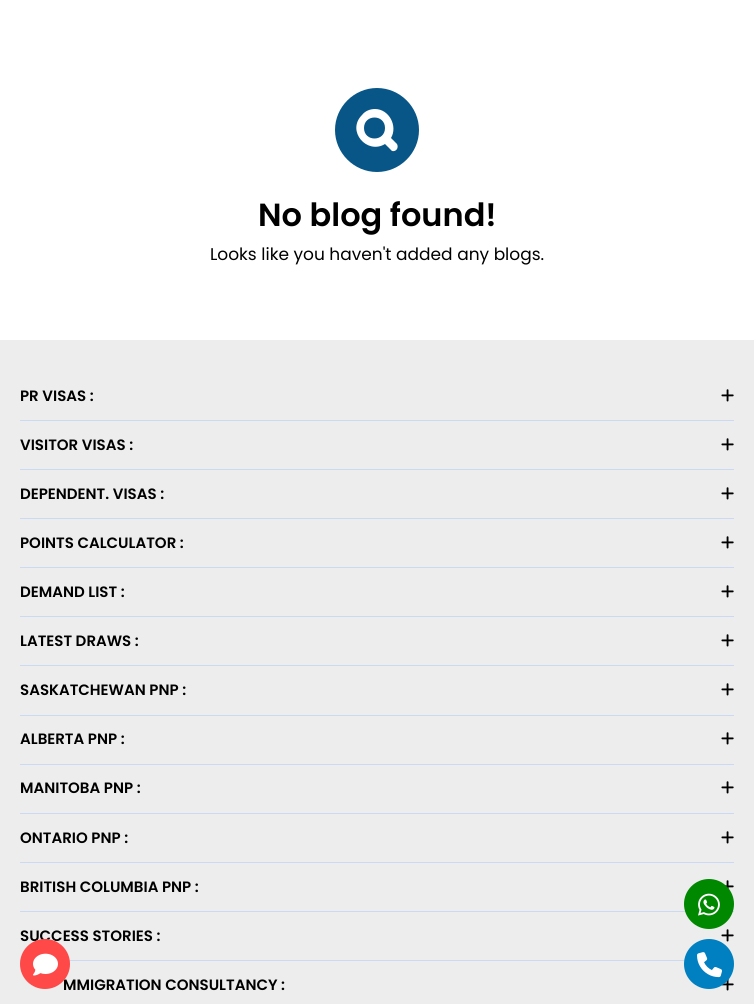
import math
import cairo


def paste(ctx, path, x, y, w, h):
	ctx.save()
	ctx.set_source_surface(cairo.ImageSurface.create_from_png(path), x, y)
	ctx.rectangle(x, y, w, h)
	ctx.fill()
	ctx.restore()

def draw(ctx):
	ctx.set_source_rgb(1, 1, 1)
	ctx.paint()
	ctx.set_source_rgb(0.031, 0.337, 0.529)
	ctx.set_fill_rule(cairo.FILL_RULE_EVEN_ODD)
	ctx.new_path()
	ctx.move_to(335, 130)
	ctx.curve_to(335, 107, 354, 88, 377, 88)
	ctx.curve_to(400, 88, 419, 107, 419, 130)
	ctx.curve_to(419, 153, 400, 172, 377, 172)
	ctx.curve_to(354, 172, 335, 153, 335, 130)
	ctx.close_path()
	ctx.move_to(364, 128)
	ctx.curve_to(364, 114, 385, 114, 385, 128)
	ctx.curve_to(385, 142, 364, 142, 364, 128)
	ctx.close_path()
	ctx.move_to(375, 109)
	ctx.curve_to(370, 109, 365, 111, 362, 115)
	ctx.curve_to(346, 131, 367, 155, 385, 144)
	ctx.line_to(392, 151)
	ctx.curve_to(396, 152, 399, 148, 397, 144)
	ctx.line_to(391, 138)
	ctx.curve_to(398, 126, 389, 109, 375, 109)
	ctx.close_path()
	ctx.fill()
	ctx.select_font_face('Poppins SemiBold')
	ctx.set_font_size(32)
	ctx.set_source_rgb(0, 0, 0)
	ctx.move_to(258, 226)
	ctx.show_text('No blog found!')
	ctx.select_font_face('Poppins')
	ctx.set_font_size(17)
	ctx.move_to(210, 260)
	ctx.show_text('Looks like you haven\'t added any blogs.')
	ctx.set_source_rgb(0.929, 0.929, 0.929)
	ctx.rectangle(0, 340, 754, 664)
	ctx.fill()
	ctx.set_source_rgb(0.796, 0.855, 0.949)
	ctx.rectangle(20, 420, 714, 1)
	ctx.fill()
	ctx.select_font_face('Poppins SemiBold')
	ctx.set_font_size(15)
	ctx.set_source_rgb(0, 0, 0)
	ctx.move_to(20, 401)
	ctx.show_text('PR VISAS :')
	paste(ctx, 'media/1.png', 721, 389, 13, 13)
	ctx.set_source_rgb(0.796, 0.855, 0.949)
	ctx.rectangle(20, 469, 714, 1)
	ctx.fill()
	ctx.set_source_rgb(0, 0, 0)
	ctx.move_to(20, 450)
	ctx.show_text('VISITOR VISAS :')
	paste(ctx, 'media/1.png', 721, 438, 13, 13)
	ctx.set_source_rgb(0.796, 0.855, 0.949)
	ctx.rectangle(20, 518, 714, 1)
	ctx.fill()
	ctx.set_source_rgb(0, 0, 0)
	ctx.move_to(20, 499)
	ctx.show_text('DEPENDENT. VISAS :')
	paste(ctx, 'media/1.png', 721, 487, 13, 13)
	ctx.set_source_rgb(0.796, 0.855, 0.949)
	ctx.rectangle(20, 567, 714, 1)
	ctx.fill()
	ctx.set_source_rgb(0, 0, 0)
	ctx.move_to(20, 548)
	ctx.show_text('POINTS CALCULATOR :')
	paste(ctx, 'media/1.png', 721, 536, 13, 13)
	ctx.set_source_rgb(0.796, 0.855, 0.949)
	ctx.rectangle(20, 616, 714, 1)
	ctx.fill()
	ctx.set_source_rgb(0, 0, 0)
	ctx.move_to(20, 597)
	ctx.show_text('DEMAND LIST :')
	paste(ctx, 'media/1.png', 721, 585, 13, 13)
	ctx.set_source_rgb(0.796, 0.855, 0.949)
	ctx.rectangle(20, 665, 714, 1)
	ctx.fill()
	ctx.set_source_rgb(0, 0, 0)
	ctx.move_to(20, 646)
	ctx.show_text('LATEST DRAWS :')
	paste(ctx, 'media/1.png', 721, 634, 13, 13)
	ctx.set_source_rgb(0.796, 0.855, 0.949)
	ctx.rectangle(20, 715, 714, 1)
	ctx.fill()
	ctx.set_source_rgb(0, 0, 0)
	ctx.move_to(20, 695)
	ctx.show_text('SASKATCHEWAN PNP :')
	paste(ctx, 'media/1.png', 721, 683, 13, 13)
	ctx.set_source_rgb(0.796, 0.855, 0.949)
	ctx.rectangle(20, 764, 714, 1)
	ctx.fill()
	ctx.set_source_rgb(0, 0, 0)
	ctx.move_to(20, 744)
	ctx.show_text('ALBERTA PNP :')
	paste(ctx, 'media/1.png', 721, 732, 13, 13)
	ctx.set_source_rgb(0.796, 0.855, 0.949)
	ctx.rectangle(20, 813, 714, 1)
	ctx.fill()
	ctx.set_source_rgb(0, 0, 0)
	ctx.move_to(20, 793)
	ctx.show_text('MANITOBA PNP :')
	paste(ctx, 'media/1.png', 721, 781, 13, 13)
	ctx.set_source_rgb(0.796, 0.855, 0.949)
	ctx.rectangle(20, 862, 714, 1)
	ctx.fill()
	ctx.set_source_rgb(0, 0, 0)
	ctx.move_to(20, 843)
	ctx.show_text('ONTARIO PNP :')
	paste(ctx, 'media/1.png', 721, 831, 13, 13)
	ctx.set_source_rgb(0.796, 0.855, 0.949)
	ctx.rectangle(20, 911, 714, 1)
	ctx.fill()
	ctx.set_source_rgb(0, 0, 0)
	ctx.move_to(20, 892)
	ctx.show_text('BRITISH COLUMBIA PNP :')
	paste(ctx, 'media/2.png', 725, 880, 9, 9)
	ctx.set_source_rgb(0.796, 0.855, 0.949)
	ctx.rectangle(20, 960, 714, 1)
	ctx.fill()
	ctx.set_source_rgb(0, 0, 0)
	ctx.move_to(20, 941)
	ctx.show_text('SUCCESS STORIES :')
	paste(ctx, 'media/1.png', 721, 929, 13, 13)
	ctx.move_to(63, 990)
	ctx.show_text('MMIGRATION CONSULTANCY :')
	paste(ctx, 'media/3.png', 721, 979, 13, 12)
	ctx.set_source_rgb(0, 0.533, 0)
	ctx.arc(709, 904, 25, 0, 2 * math.pi)
	ctx.fill()
	paste(ctx, 'media/4.png', 698, 893, 22, 23)
	ctx.set_source_rgb(0, 0.502, 0.753)
	ctx.arc(709, 964, 25, 0, 2 * math.pi)
	ctx.fill()
	paste(ctx, 'media/5.png', 697, 952, 25, 26)
	ctx.set_source_rgb(1, 0.282, 0.282)
	ctx.arc(45, 964, 25, 0, 2 * math.pi)
	ctx.fill()
	paste(ctx, 'media/6.png', 33, 953, 25, 23)


surface = cairo.ImageSurface(cairo.FORMAT_RGB24, 754, 1004)
ctx = cairo.Context(surface)
options = cairo.FontOptions()
options.set_hint_metrics(cairo.HINT_METRICS_OFF)
options.set_hint_style(cairo.HINT_STYLE_NONE)
ctx.set_font_options(options)
ctx.set_miter_limit(4)
draw(ctx)
surface.write_to_png('image.png')
